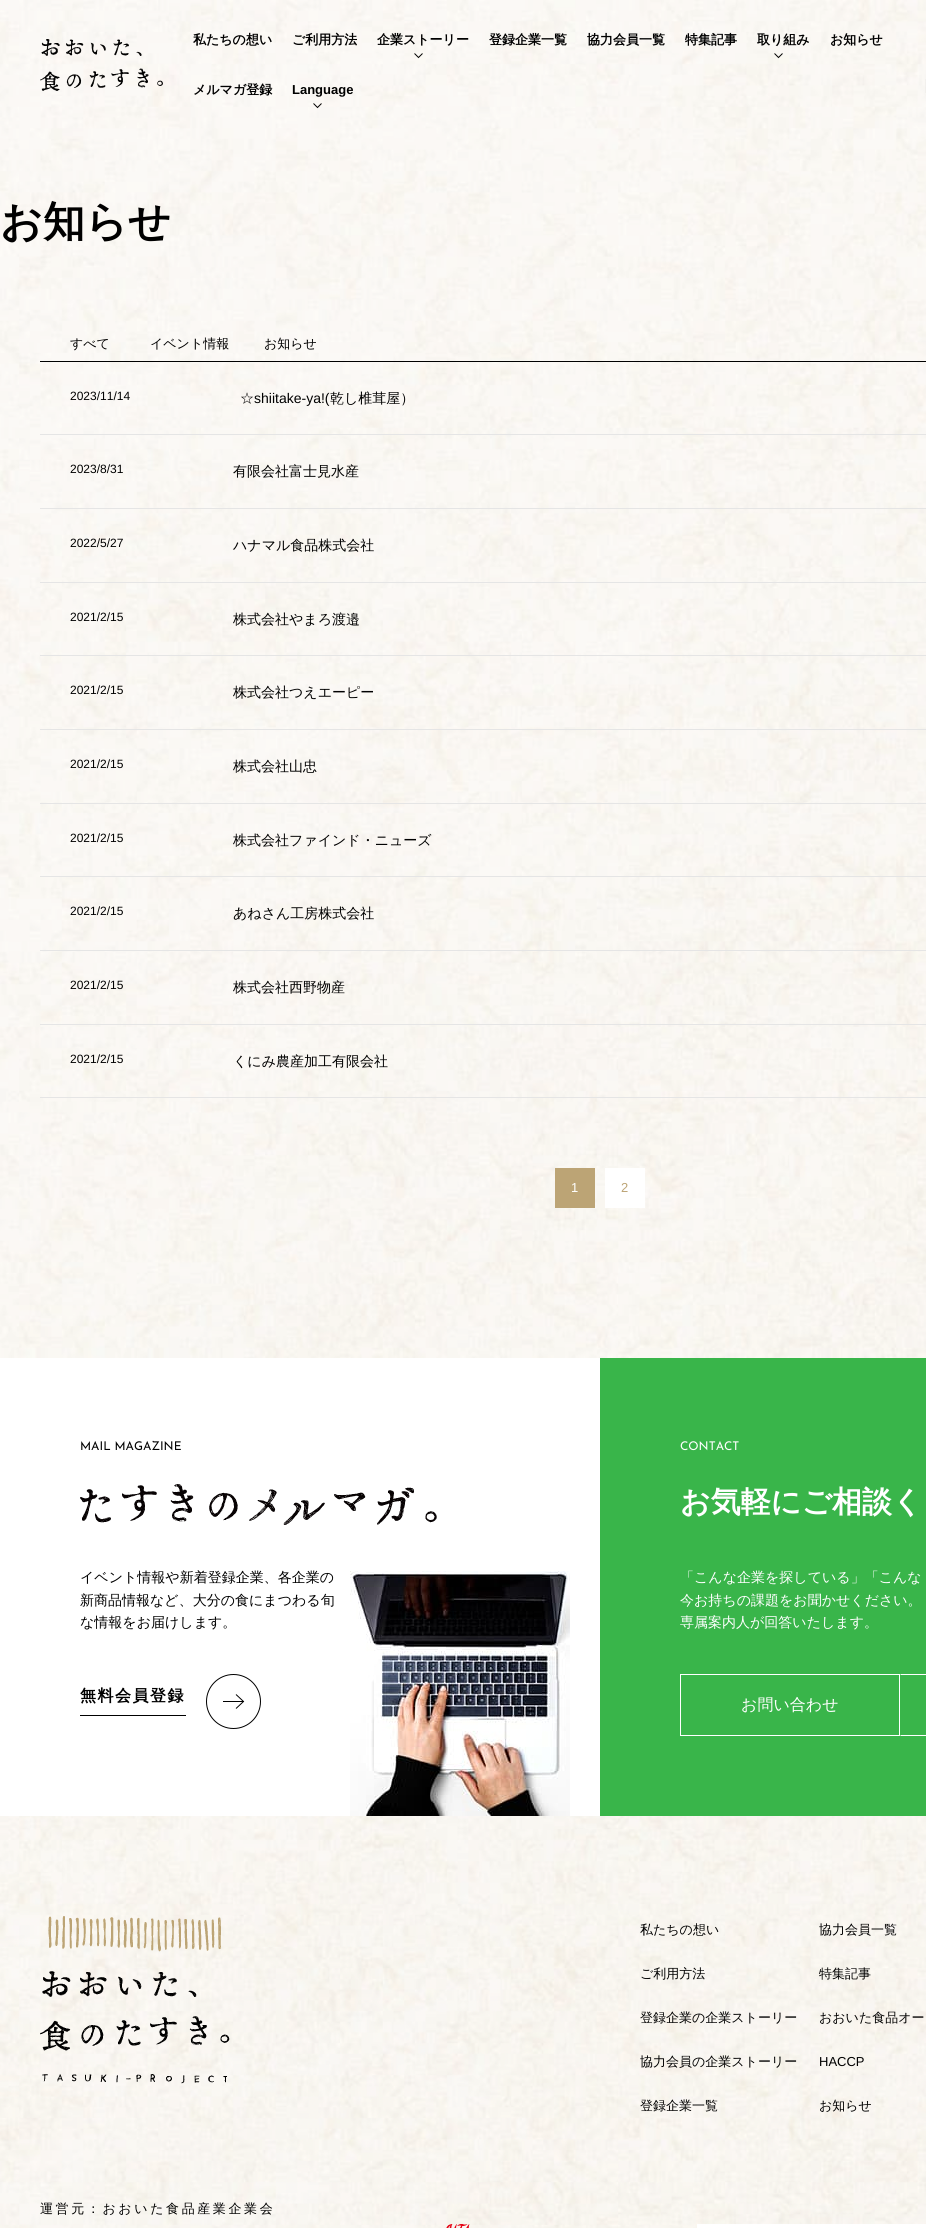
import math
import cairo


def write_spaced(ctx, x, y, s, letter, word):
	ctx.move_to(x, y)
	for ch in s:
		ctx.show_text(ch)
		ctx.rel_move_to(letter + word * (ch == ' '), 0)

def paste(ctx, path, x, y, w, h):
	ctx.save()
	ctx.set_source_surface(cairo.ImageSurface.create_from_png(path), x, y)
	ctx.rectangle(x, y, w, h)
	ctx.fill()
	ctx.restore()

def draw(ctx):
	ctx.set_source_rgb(1, 1, 1)
	ctx.paint()
	paste(ctx, 'media/1.png', 0, 0, 926, 2228)
	paste(ctx, 'media/2.png', 40, 39, 123, 52)
	ctx.select_font_face('WenQuanYi Zen Hei', cairo.FONT_SLANT_NORMAL, cairo.FONT_WEIGHT_BOLD)
	ctx.set_font_size(13)
	ctx.set_source_rgb(0, 0, 0)
	for x, y, s in [
		(193, 44, '私たちの想い'),
		(292, 44, 'ご利用方法'),
		(377, 44, '企業ストーリー'),
	]:
		ctx.move_to(x, y)
		ctx.show_text(s)
	ctx.new_path()
	ctx.move_to(422.5, 53.5)
	ctx.line_to(418.5, 57.5)
	ctx.line_to(414.5, 53.5)
	ctx.set_line_width(1)
	ctx.stroke()
	for x, y, s in [
		(489, 44, '登録企業一覧'),
		(587, 44, '協力会員一覧'),
		(685, 44, '特集記事'),
		(757, 44, '取り組み'),
	]:
		ctx.move_to(x, y)
		ctx.show_text(s)
	ctx.new_path()
	ctx.move_to(782.5, 53.5)
	ctx.line_to(778.5, 57.5)
	ctx.line_to(774.5, 53.5)
	ctx.stroke()
	ctx.move_to(830, 44)
	ctx.show_text('お知らせ')
	ctx.move_to(193, 94)
	ctx.show_text('メルマガ登録')
	ctx.select_font_face('Liberation Sans', cairo.FONT_SLANT_NORMAL, cairo.FONT_WEIGHT_BOLD)
	ctx.move_to(292, 94)
	ctx.show_text('Language')
	ctx.new_path()
	ctx.move_to(321.5, 103.5)
	ctx.line_to(317.5, 107.5)
	ctx.line_to(313.5, 103.5)
	ctx.stroke()
	paste(ctx, 'media/3.png', 925, 79, 1, 14)
	ctx.select_font_face('WenQuanYi Zen Hei', cairo.FONT_SLANT_NORMAL, cairo.FONT_WEIGHT_BOLD)
	ctx.set_font_size(42)
	ctx.move_to(0, 236)
	ctx.show_text('お知らせ')
	ctx.select_font_face('WenQuanYi Zen Hei Medium')
	ctx.set_font_size(13)
	for x, y, s in [
		(70, 348, 'すべて'),
		(150, 348, 'イベント情報'),
		(264, 348, 'お知らせ'),
	]:
		ctx.move_to(x, y)
		ctx.show_text(s)
	ctx.rectangle(40, 361, 886, 1)
	ctx.fill()
	ctx.set_source_rgb(0.898, 0.898, 0.898)
	ctx.rectangle(40, 434, 886, 1)
	ctx.fill()
	ctx.select_font_face('Liberation Sans')
	ctx.set_font_size(12)
	ctx.set_source_rgb(0, 0, 0)
	ctx.move_to(70, 400)
	ctx.show_text('2023/11/14')
	ctx.select_font_face('WenQuanYi Zen Hei Medium')
	ctx.set_font_size(14)
	ctx.move_to(240, 403)
	ctx.show_text('☆')
	ctx.select_font_face('Liberation Sans')
	ctx.move_to(254, 403)
	ctx.show_text('shiitake-ya!(')
	ctx.select_font_face('WenQuanYi Zen Hei Medium')
	ctx.move_to(330, 403)
	ctx.show_text('乾し椎茸屋）')
	ctx.set_source_rgb(0.898, 0.898, 0.898)
	ctx.rectangle(40, 508, 886, 1)
	ctx.fill()
	ctx.select_font_face('Liberation Sans')
	ctx.set_font_size(12)
	ctx.set_source_rgb(0, 0, 0)
	ctx.move_to(70, 473)
	ctx.show_text('2023/8/31')
	ctx.select_font_face('WenQuanYi Zen Hei Medium')
	ctx.set_font_size(14)
	ctx.move_to(233, 476)
	ctx.show_text('有限会社富士見水産')
	ctx.set_source_rgb(0.898, 0.898, 0.898)
	ctx.rectangle(40, 582, 886, 1)
	ctx.fill()
	ctx.select_font_face('Liberation Sans')
	ctx.set_font_size(12)
	ctx.set_source_rgb(0, 0, 0)
	ctx.move_to(70, 547)
	ctx.show_text('2022/5/27')
	ctx.select_font_face('WenQuanYi Zen Hei Medium')
	ctx.set_font_size(14)
	ctx.move_to(233, 550)
	ctx.show_text('ハナマル食品株式会社')
	ctx.set_source_rgb(0.898, 0.898, 0.898)
	ctx.rectangle(40, 655, 886, 1)
	ctx.fill()
	ctx.select_font_face('Liberation Sans')
	ctx.set_font_size(12)
	ctx.set_source_rgb(0, 0, 0)
	ctx.move_to(70, 621)
	ctx.show_text('2021/2/15')
	ctx.select_font_face('WenQuanYi Zen Hei Medium')
	ctx.set_font_size(14)
	ctx.move_to(233, 624)
	ctx.show_text('株式会社やまろ渡邉')
	ctx.set_source_rgb(0.898, 0.898, 0.898)
	ctx.rectangle(40, 729, 886, 1)
	ctx.fill()
	ctx.select_font_face('Liberation Sans')
	ctx.set_font_size(12)
	ctx.set_source_rgb(0, 0, 0)
	ctx.move_to(70, 694)
	ctx.show_text('2021/2/15')
	ctx.select_font_face('WenQuanYi Zen Hei Medium')
	ctx.set_font_size(14)
	ctx.move_to(233, 697)
	ctx.show_text('株式会社つえエーピー')
	ctx.set_source_rgb(0.898, 0.898, 0.898)
	ctx.rectangle(40, 803, 886, 1)
	ctx.fill()
	ctx.select_font_face('Liberation Sans')
	ctx.set_font_size(12)
	ctx.set_source_rgb(0, 0, 0)
	ctx.move_to(70, 768)
	ctx.show_text('2021/2/15')
	ctx.select_font_face('WenQuanYi Zen Hei Medium')
	ctx.set_font_size(14)
	ctx.move_to(233, 771)
	ctx.show_text('株式会社山忠')
	ctx.set_source_rgb(0.898, 0.898, 0.898)
	ctx.rectangle(40, 876, 886, 1)
	ctx.fill()
	ctx.select_font_face('Liberation Sans')
	ctx.set_font_size(12)
	ctx.set_source_rgb(0, 0, 0)
	ctx.move_to(70, 842)
	ctx.show_text('2021/2/15')
	ctx.select_font_face('WenQuanYi Zen Hei Medium')
	ctx.set_font_size(14)
	ctx.move_to(233, 845)
	ctx.show_text('株式会社ファインド・ニューズ')
	ctx.set_source_rgb(0.898, 0.898, 0.898)
	ctx.rectangle(40, 950, 886, 1)
	ctx.fill()
	ctx.select_font_face('Liberation Sans')
	ctx.set_font_size(12)
	ctx.set_source_rgb(0, 0, 0)
	ctx.move_to(70, 915)
	ctx.show_text('2021/2/15')
	ctx.select_font_face('WenQuanYi Zen Hei Medium')
	ctx.set_font_size(14)
	ctx.move_to(233, 918)
	ctx.show_text('あねさん工房株式会社')
	ctx.set_source_rgb(0.898, 0.898, 0.898)
	ctx.rectangle(40, 1024, 886, 1)
	ctx.fill()
	ctx.select_font_face('Liberation Sans')
	ctx.set_font_size(12)
	ctx.set_source_rgb(0, 0, 0)
	ctx.move_to(70, 989)
	ctx.show_text('2021/2/15')
	ctx.select_font_face('WenQuanYi Zen Hei Medium')
	ctx.set_font_size(14)
	ctx.move_to(233, 992)
	ctx.show_text('株式会社西野物産')
	ctx.set_source_rgb(0.898, 0.898, 0.898)
	ctx.rectangle(40, 1097, 886, 1)
	ctx.fill()
	ctx.select_font_face('Liberation Sans')
	ctx.set_font_size(12)
	ctx.set_source_rgb(0, 0, 0)
	ctx.move_to(70, 1063)
	ctx.show_text('2021/2/15')
	ctx.select_font_face('WenQuanYi Zen Hei Medium')
	ctx.set_font_size(14)
	ctx.move_to(233, 1066)
	ctx.show_text('くにみ農産加工有限会社')
	ctx.set_source_rgb(0.737, 0.643, 0.459)
	ctx.rectangle(555, 1168, 40, 40)
	ctx.fill()
	ctx.select_font_face('Liberation Sans')
	ctx.set_font_size(13)
	ctx.set_source_rgb(1, 1, 1)
	ctx.move_to(571, 1192)
	ctx.show_text('1')
	ctx.rectangle(605, 1168, 40, 40)
	ctx.fill()
	ctx.set_source_rgb(0.737, 0.643, 0.459)
	ctx.move_to(621, 1192)
	ctx.show_text('2')
	ctx.set_source_rgb(1, 1, 1)
	ctx.rectangle(0, 1358, 600, 458)
	ctx.fill()
	ctx.select_font_face('Josefin Sans Thin')
	ctx.set_font_size(12)
	ctx.set_source_rgb(0, 0, 0)
	ctx.move_to(80, 1450)
	ctx.show_text('MAIL MAGAZINE')
	paste(ctx, 'media/4.png', 80, 1484, 357, 41)
	ctx.select_font_face('WenQuanYi Zen Hei Medium')
	ctx.set_font_size(14)
	for x, y, s in [
		(80, 1582, 'イベント情報や新着登録企業、各企業の'),
		(80, 1605, '新商品情報など、大分の食にまつわる旬'),
		(80, 1627, 'な情報をお届けします。'),
	]:
		ctx.move_to(x, y)
		ctx.show_text(s)
	paste(ctx, 'media/5.png', 350, 1571, 220, 245)
	ctx.rectangle(80, 1715, 106, 1)
	ctx.fill()
	ctx.select_font_face('WenQuanYi Zen Hei', cairo.FONT_SLANT_NORMAL, cairo.FONT_WEIGHT_BOLD)
	ctx.set_font_size(16)
	write_spaced(ctx, 80, 1701, '無料会員登録', 1.5, 0)
	ctx.new_path()
	ctx.arc(233.5, 1701.5, 27, 0, 2 * math.pi)
	ctx.stroke()
	ctx.rectangle(223, 1701, 21, 1)
	ctx.fill()
	ctx.new_path()
	ctx.move_to(236, 1694.5)
	ctx.line_to(243.5, 1701.5)
	ctx.line_to(236, 1708.5)
	ctx.stroke()
	ctx.set_source_rgb(0.224, 0.71, 0.29)
	ctx.rectangle(600, 1358, 326, 458)
	ctx.fill()
	ctx.select_font_face('Josefin Sans Thin')
	ctx.set_font_size(12)
	ctx.set_source_rgb(1, 1, 1)
	ctx.move_to(680, 1450)
	ctx.show_text('CONTACT')
	ctx.select_font_face('WenQuanYi Zen Hei', cairo.FONT_SLANT_NORMAL, cairo.FONT_WEIGHT_BOLD)
	ctx.set_font_size(30)
	ctx.move_to(680, 1512)
	ctx.show_text('お気軽にご相談く')
	ctx.select_font_face('WenQuanYi Zen Hei Medium')
	ctx.set_font_size(14)
	for x, y, s in [
		(680, 1582, '「こんな企業を探している」「こんな'),
		(680, 1605, '今お持ちの課題をお聞かせください。'),
		(680, 1627, '専属案内人が回答いたします。'),
	]:
		ctx.move_to(x, y)
		ctx.show_text(s)
	ctx.rectangle(680.5, 1674.5, 219, 61)
	ctx.stroke()
	ctx.set_font_size(16)
	ctx.move_to(741, 1710)
	ctx.show_text('お問い合わせ')
	ctx.new_path()
	ctx.move_to(900, 1674)
	ctx.line_to(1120, 1674)
	ctx.line_to(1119, 1675)
	ctx.line_to(901, 1675)
	ctx.close_path()
	ctx.move_to(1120, 1736)
	ctx.line_to(900, 1736)
	ctx.line_to(901, 1735)
	ctx.line_to(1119, 1735)
	ctx.close_path()
	ctx.fill()
	paste(ctx, 'media/6.png', 40, 1916, 190, 168)
	ctx.set_font_size(13)
	ctx.set_source_rgb(0, 0, 0)
	for x, y, s in [
		(640, 1934, '私たちの想い'),
		(819, 1934, '協力会員一覧'),
		(640, 1978, 'ご利用方法'),
		(819, 1978, '特集記事'),
		(640, 2022, '登録企業の企業ストーリー'),
		(819, 2022, 'おおいた食品オー'),
		(640, 2066, '協力会員の企業ストーリー'),
	]:
		ctx.move_to(x, y)
		ctx.show_text(s)
	ctx.select_font_face('Liberation Sans')
	ctx.move_to(819, 2066)
	ctx.show_text('HACCP')
	ctx.select_font_face('WenQuanYi Zen Hei Medium')
	ctx.move_to(640, 2110)
	ctx.show_text('登録企業一覧')
	ctx.move_to(819, 2110)
	ctx.show_text('お知らせ')
	write_spaced(ctx, 40, 2213, '運営元：おおいた食品産業企業会', 2.6, 0)
	paste(ctx, 'media/7.png', 446, 2224, 24, 4)
	ctx.set_source_rgb(1, 1, 1)
	ctx.rectangle(697, 2224, 229, 4)
	ctx.fill()


surface = cairo.ImageSurface(cairo.FORMAT_RGB24, 926, 2228)
ctx = cairo.Context(surface)
options = cairo.FontOptions()
options.set_hint_metrics(cairo.HINT_METRICS_OFF)
options.set_hint_style(cairo.HINT_STYLE_NONE)
ctx.set_font_options(options)
ctx.set_miter_limit(4)
draw(ctx)
surface.write_to_png('image.png')
